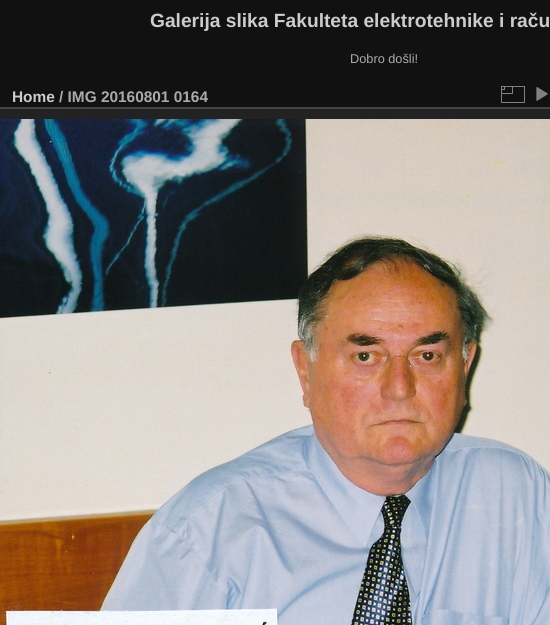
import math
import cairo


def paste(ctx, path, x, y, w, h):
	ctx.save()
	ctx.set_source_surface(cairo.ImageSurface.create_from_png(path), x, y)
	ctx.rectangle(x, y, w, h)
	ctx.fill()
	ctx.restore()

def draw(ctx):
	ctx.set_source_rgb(0.067, 0.067, 0.067)
	ctx.paint()
	ctx.select_font_face('Liberation Sans', cairo.FONT_SLANT_NORMAL, cairo.FONT_WEIGHT_BOLD)
	ctx.set_font_size(19.2)
	ctx.set_source_rgb(0.8, 0.8, 0.8)
	ctx.move_to(150, 27)
	ctx.show_text('Galerija slika Fakulteta elektrotehnike i raču')
	ctx.select_font_face('Liberation Sans')
	ctx.set_font_size(12.75)
	ctx.set_source_rgb(0.667, 0.667, 0.667)
	ctx.move_to(350, 63)
	ctx.show_text('Dobro došli!')
	ctx.set_source_rgb(0.133, 0.133, 0.133)
	ctx.rectangle(0, 109, 550, 10)
	ctx.fill()
	ctx.set_source_rgb(0.267, 0.267, 0.267)
	ctx.rectangle(0, 107, 550, 2)
	ctx.fill()
	ctx.select_font_face('Liberation Sans', cairo.FONT_SLANT_NORMAL, cairo.FONT_WEIGHT_BOLD)
	ctx.set_font_size(15.4)
	ctx.set_source_rgb(0.8, 0.8, 0.8)
	ctx.move_to(12, 102)
	ctx.show_text('Home')
	ctx.set_source_rgb(0.667, 0.667, 0.667)
	ctx.move_to(59, 102)
	ctx.show_text('/ IMG 20160801 0164')
	paste(ctx, 'media/1.png', 501, 86, 24, 17)
	paste(ctx, 'media/2.png', 536, 87, 12, 14)
	paste(ctx, 'media/3.png', 0, 119, 550, 506)


surface = cairo.ImageSurface(cairo.FORMAT_RGB24, 550, 625)
ctx = cairo.Context(surface)
options = cairo.FontOptions()
options.set_hint_metrics(cairo.HINT_METRICS_OFF)
options.set_hint_style(cairo.HINT_STYLE_NONE)
ctx.set_font_options(options)
ctx.set_miter_limit(4)
draw(ctx)
surface.write_to_png('image.png')
